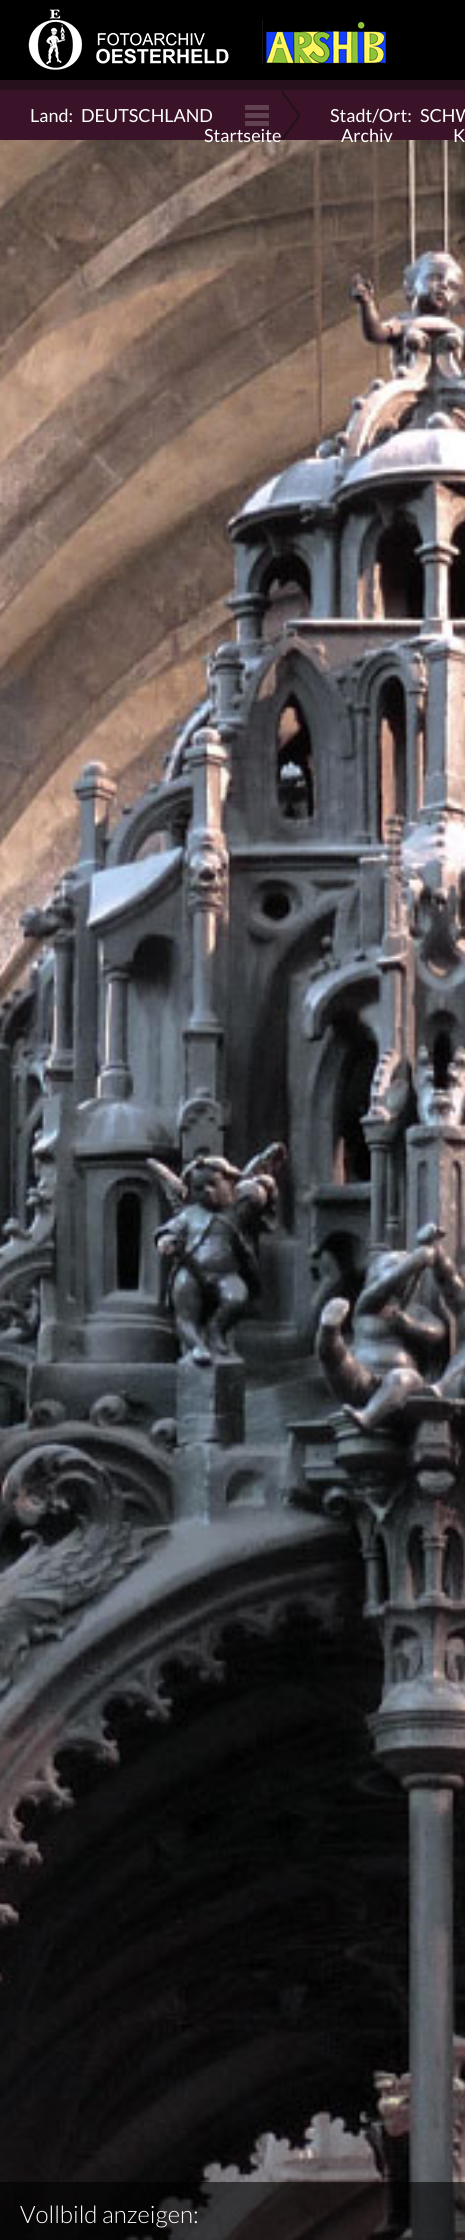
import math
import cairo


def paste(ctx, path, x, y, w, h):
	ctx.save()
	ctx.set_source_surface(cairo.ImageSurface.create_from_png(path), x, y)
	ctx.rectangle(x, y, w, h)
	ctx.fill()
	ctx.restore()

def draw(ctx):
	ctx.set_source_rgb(1, 1, 1)
	ctx.paint()
	ctx.set_source_rgb(0.227, 0.075, 0.157)
	ctx.rectangle(0, 90, 465, 50)
	ctx.fill()
	paste(ctx, 'media/1.png', 281, 90, 19, 50)
	paste(ctx, 'media/2.png', 245, 105, 24, 21)
	ctx.select_font_face('Lato')
	ctx.set_font_size(18)
	ctx.set_source_rgb(1, 1, 1)
	for x, y, s in [
		(30, 122, 'Land:'),
		(81, 122, 'DEUTSCHLAND'),
		(330, 122, 'Stadt/Ort:'),
		(420, 122, 'SCHW'),
	]:
		ctx.move_to(x, y)
		ctx.show_text(s)
	ctx.set_source_rgb(0, 0, 0)
	ctx.rectangle(0, 0, 465, 80)
	ctx.fill()
	ctx.set_source_rgb(0.149, 0.063, 0.11)
	ctx.rectangle(0, 80, 465, 10)
	ctx.fill()
	paste(ctx, 'media/3.png', 28, 9, 201, 61)
	paste(ctx, 'media/4.png', 260, 19, 128, 49)
	paste(ctx, 'media/5.png', 0, 140, 465, 2100)
	ctx.set_source_rgb(1, 1, 1)
	for x, y, s in [
		(204, 142, 'Startseite'),
		(341, 142, 'Archiv'),
		(453, 142, 'K'),
	]:
		ctx.move_to(x, y)
		ctx.show_text(s)
	ctx.set_source_rgba(0, 0, 0, 0.6)
	ctx.rectangle(0, 2182, 465, 58)
	ctx.fill()
	ctx.select_font_face('Lato Light')
	ctx.set_font_size(24)
	ctx.set_source_rgb(1, 1, 1)
	ctx.move_to(20, 2223)
	ctx.show_text('Vollbild anzeigen:')


surface = cairo.ImageSurface(cairo.FORMAT_RGB24, 465, 2240)
ctx = cairo.Context(surface)
options = cairo.FontOptions()
options.set_hint_metrics(cairo.HINT_METRICS_OFF)
options.set_hint_style(cairo.HINT_STYLE_NONE)
ctx.set_font_options(options)
ctx.set_miter_limit(4)
draw(ctx)
surface.write_to_png('image.png')
